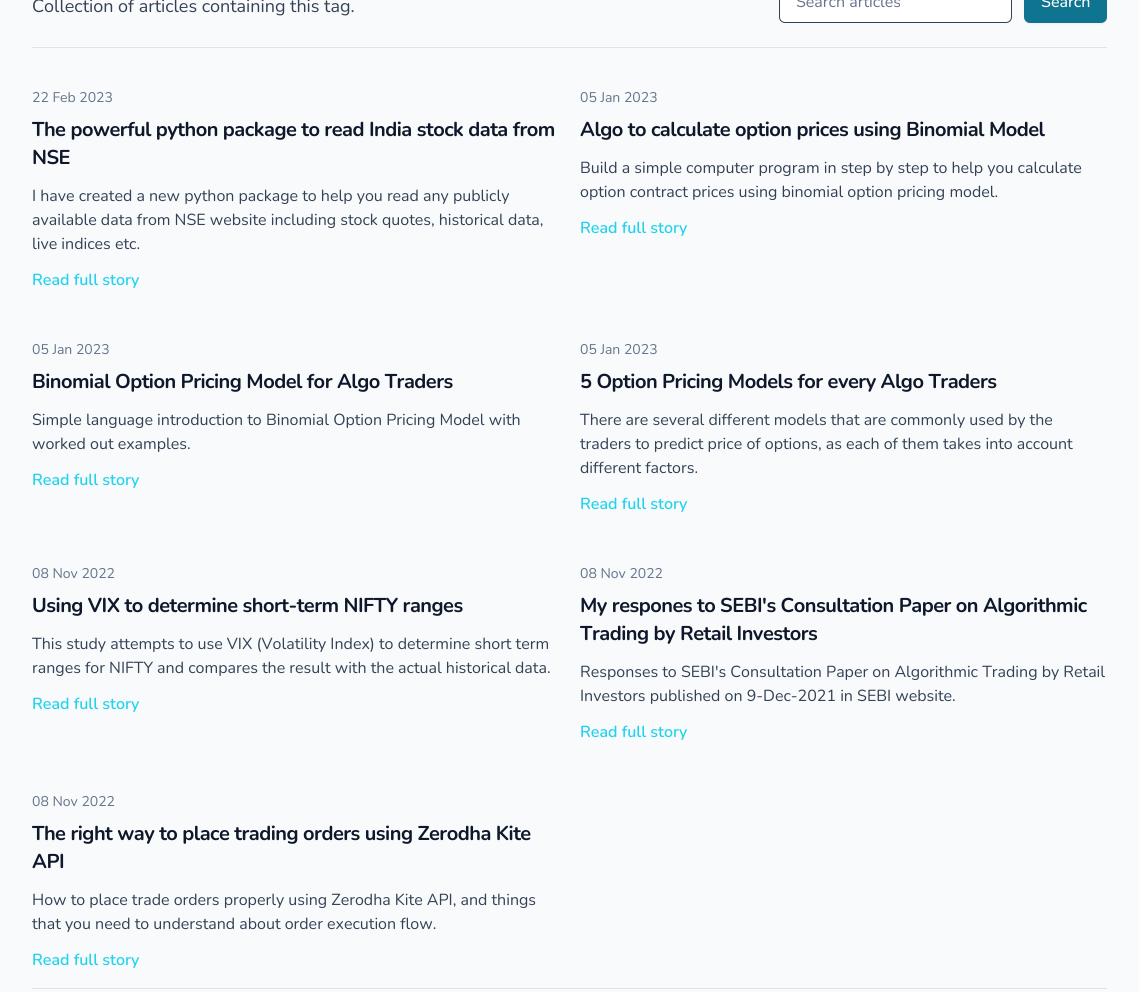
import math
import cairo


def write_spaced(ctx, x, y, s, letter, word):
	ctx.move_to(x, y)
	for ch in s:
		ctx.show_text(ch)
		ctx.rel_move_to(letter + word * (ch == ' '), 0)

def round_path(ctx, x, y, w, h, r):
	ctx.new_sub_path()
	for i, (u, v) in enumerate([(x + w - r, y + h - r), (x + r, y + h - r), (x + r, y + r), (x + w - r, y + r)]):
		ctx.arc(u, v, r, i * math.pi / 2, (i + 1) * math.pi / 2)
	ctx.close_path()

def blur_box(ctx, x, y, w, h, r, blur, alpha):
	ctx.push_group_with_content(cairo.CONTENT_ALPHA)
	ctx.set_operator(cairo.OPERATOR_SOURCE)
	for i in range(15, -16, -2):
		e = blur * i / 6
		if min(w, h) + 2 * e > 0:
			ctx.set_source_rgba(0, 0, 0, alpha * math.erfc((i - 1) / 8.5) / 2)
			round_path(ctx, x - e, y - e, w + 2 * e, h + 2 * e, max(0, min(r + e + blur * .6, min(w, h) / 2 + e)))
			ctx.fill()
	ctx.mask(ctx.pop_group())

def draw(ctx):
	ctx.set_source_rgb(0.976, 0.98, 0.984)
	ctx.paint()
	ctx.select_font_face('Nunito')
	ctx.set_font_size(18)
	ctx.set_source_rgb(0.2, 0.255, 0.333)
	ctx.move_to(32, 12)
	ctx.show_text('Collection of articles containing this tag.')
	ctx.set_source_rgb(1, 1, 1)
	round_path(ctx, 779.5, -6.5, 232, 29, 5.5)
	ctx.fill_preserve()
	ctx.set_source_rgb(0.2, 0.255, 0.333)
	ctx.set_line_width(1)
	ctx.stroke()
	ctx.set_font_size(16)
	ctx.set_source_rgb(0.392, 0.455, 0.545)
	ctx.move_to(796, 7)
	ctx.show_text('Search articles')
	ctx.set_source_rgb(0, 0, 0)
	blur_box(ctx, 1024, -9, 83, 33, 6, 1, 0.05)
	ctx.set_source_rgb(0.055, 0.455, 0.565)
	round_path(ctx, 1024, -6, 83, 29, 6)
	ctx.fill()
	ctx.select_font_face('Nunito Medium')
	ctx.set_source_rgb(1, 1, 1)
	ctx.move_to(1041, 7)
	ctx.show_text('Search')
	ctx.set_source_rgb(0.886, 0.89, 0.902)
	ctx.rectangle(32, 47, 1075, 1)
	ctx.fill()
	ctx.select_font_face('Nunito')
	ctx.set_font_size(14)
	ctx.set_source_rgb(0.392, 0.455, 0.545)
	ctx.move_to(32, 102)
	ctx.show_text('22 Feb 2023')
	ctx.select_font_face('Nunito', cairo.FONT_SLANT_NORMAL, cairo.FONT_WEIGHT_BOLD)
	ctx.set_font_size(20)
	ctx.set_source_rgb(0.059, 0.09, 0.165)
	write_spaced(ctx, 32, 136, 'The powerful python package to read India stock data from', -0.5, 0)
	write_spaced(ctx, 32, 164, 'NSE', -0.5, 0)
	ctx.select_font_face('Nunito')
	ctx.set_font_size(16)
	ctx.set_source_rgb(0.2, 0.255, 0.333)
	for x, y, s in [
		(32, 201, 'I have created a new python package to help you read any publicly'),
		(32, 225, 'available data from NSE website including stock quotes, historical data,'),
		(32, 249, 'live indices etc.'),
	]:
		ctx.move_to(x, y)
		ctx.show_text(s)
	ctx.select_font_face('Nunito SemiBold')
	ctx.set_source_rgb(0.133, 0.827, 0.933)
	ctx.move_to(32, 285)
	ctx.show_text('Read full story')
	ctx.select_font_face('Nunito')
	ctx.set_font_size(14)
	ctx.set_source_rgb(0.392, 0.455, 0.545)
	ctx.move_to(580, 102)
	ctx.show_text('05 Jan 2023')
	ctx.select_font_face('Nunito', cairo.FONT_SLANT_NORMAL, cairo.FONT_WEIGHT_BOLD)
	ctx.set_font_size(20)
	ctx.set_source_rgb(0.059, 0.09, 0.165)
	write_spaced(ctx, 580, 136, 'Algo to calculate option prices using Binomial Model', -0.5, 0)
	ctx.select_font_face('Nunito')
	ctx.set_font_size(16)
	ctx.set_source_rgb(0.2, 0.255, 0.333)
	ctx.move_to(580, 173)
	ctx.show_text('Build a simple computer program in step by step to help you calculate')
	ctx.move_to(580, 197)
	ctx.show_text('option contract prices using binomial option pricing model.')
	ctx.select_font_face('Nunito SemiBold')
	ctx.set_source_rgb(0.133, 0.827, 0.933)
	ctx.move_to(580, 233)
	ctx.show_text('Read full story')
	ctx.select_font_face('Nunito')
	ctx.set_font_size(14)
	ctx.set_source_rgb(0.392, 0.455, 0.545)
	ctx.move_to(32, 354)
	ctx.show_text('05 Jan 2023')
	ctx.select_font_face('Nunito', cairo.FONT_SLANT_NORMAL, cairo.FONT_WEIGHT_BOLD)
	ctx.set_font_size(20)
	ctx.set_source_rgb(0.059, 0.09, 0.165)
	write_spaced(ctx, 32, 388, 'Binomial Option Pricing Model for Algo Traders', -0.5, 0)
	ctx.select_font_face('Nunito')
	ctx.set_font_size(16)
	ctx.set_source_rgb(0.2, 0.255, 0.333)
	ctx.move_to(32, 425)
	ctx.show_text('Simple language introduction to Binomial Option Pricing Model with')
	ctx.move_to(32, 449)
	ctx.show_text('worked out examples.')
	ctx.select_font_face('Nunito SemiBold')
	ctx.set_source_rgb(0.133, 0.827, 0.933)
	ctx.move_to(32, 485)
	ctx.show_text('Read full story')
	ctx.select_font_face('Nunito')
	ctx.set_font_size(14)
	ctx.set_source_rgb(0.392, 0.455, 0.545)
	ctx.move_to(580, 354)
	ctx.show_text('05 Jan 2023')
	ctx.select_font_face('Nunito', cairo.FONT_SLANT_NORMAL, cairo.FONT_WEIGHT_BOLD)
	ctx.set_font_size(20)
	ctx.set_source_rgb(0.059, 0.09, 0.165)
	write_spaced(ctx, 580, 388, '5 Option Pricing Models for every Algo Traders', -0.5, 0)
	ctx.select_font_face('Nunito')
	ctx.set_font_size(16)
	ctx.set_source_rgb(0.2, 0.255, 0.333)
	for x, y, s in [
		(580, 425, 'There are several different models that are commonly used by the'),
		(580, 449, 'traders to predict price of options, as each of them takes into account'),
		(580, 473, 'different factors.'),
	]:
		ctx.move_to(x, y)
		ctx.show_text(s)
	ctx.select_font_face('Nunito SemiBold')
	ctx.set_source_rgb(0.133, 0.827, 0.933)
	ctx.move_to(580, 509)
	ctx.show_text('Read full story')
	ctx.select_font_face('Nunito')
	ctx.set_font_size(14)
	ctx.set_source_rgb(0.392, 0.455, 0.545)
	ctx.move_to(32, 578)
	ctx.show_text('08 Nov 2022')
	ctx.select_font_face('Nunito', cairo.FONT_SLANT_NORMAL, cairo.FONT_WEIGHT_BOLD)
	ctx.set_font_size(20)
	ctx.set_source_rgb(0.059, 0.09, 0.165)
	write_spaced(ctx, 32, 612, 'Using VIX to determine short-term NIFTY ranges', -0.5, 0)
	ctx.select_font_face('Nunito')
	ctx.set_font_size(16)
	ctx.set_source_rgb(0.2, 0.255, 0.333)
	ctx.move_to(32, 649)
	ctx.show_text('This study attempts to use VIX (Volatility Index) to determine short term')
	ctx.move_to(32, 673)
	ctx.show_text('ranges for NIFTY and compares the result with the actual historical data.')
	ctx.select_font_face('Nunito SemiBold')
	ctx.set_source_rgb(0.133, 0.827, 0.933)
	ctx.move_to(32, 709)
	ctx.show_text('Read full story')
	ctx.select_font_face('Nunito')
	ctx.set_font_size(14)
	ctx.set_source_rgb(0.392, 0.455, 0.545)
	ctx.move_to(580, 578)
	ctx.show_text('08 Nov 2022')
	ctx.select_font_face('Nunito', cairo.FONT_SLANT_NORMAL, cairo.FONT_WEIGHT_BOLD)
	ctx.set_font_size(20)
	ctx.set_source_rgb(0.059, 0.09, 0.165)
	write_spaced(ctx, 580, 612, 'My respones to SEBI\'s Consultation Paper on Algorithmic', -0.5, 0)
	write_spaced(ctx, 580, 640, 'Trading by Retail Investors', -0.5, 0)
	ctx.select_font_face('Nunito')
	ctx.set_font_size(16)
	ctx.set_source_rgb(0.2, 0.255, 0.333)
	ctx.move_to(580, 677)
	ctx.show_text('Responses to SEBI\'s Consultation Paper on Algorithmic Trading by Retail')
	ctx.move_to(580, 701)
	ctx.show_text('Investors published on 9-Dec-2021 in SEBI website.')
	ctx.select_font_face('Nunito SemiBold')
	ctx.set_source_rgb(0.133, 0.827, 0.933)
	ctx.move_to(580, 737)
	ctx.show_text('Read full story')
	ctx.select_font_face('Nunito')
	ctx.set_font_size(14)
	ctx.set_source_rgb(0.392, 0.455, 0.545)
	ctx.move_to(32, 806)
	ctx.show_text('08 Nov 2022')
	ctx.select_font_face('Nunito', cairo.FONT_SLANT_NORMAL, cairo.FONT_WEIGHT_BOLD)
	ctx.set_font_size(20)
	ctx.set_source_rgb(0.059, 0.09, 0.165)
	write_spaced(ctx, 32, 840, 'The right way to place trading orders using Zerodha Kite', -0.5, 0)
	write_spaced(ctx, 32, 868, 'API', -0.5, 0)
	ctx.select_font_face('Nunito')
	ctx.set_font_size(16)
	ctx.set_source_rgb(0.2, 0.255, 0.333)
	ctx.move_to(32, 905)
	ctx.show_text('How to place trade orders properly using Zerodha Kite API, and things')
	ctx.move_to(32, 929)
	ctx.show_text('that you need to understand about order execution flow.')
	ctx.select_font_face('Nunito SemiBold')
	ctx.set_source_rgb(0.133, 0.827, 0.933)
	ctx.move_to(32, 965)
	ctx.show_text('Read full story')
	ctx.set_source_rgb(0.886, 0.89, 0.902)
	ctx.rectangle(32, 988, 1075, 1)
	ctx.fill()


surface = cairo.ImageSurface(cairo.FORMAT_RGB24, 1139, 992)
ctx = cairo.Context(surface)
options = cairo.FontOptions()
options.set_hint_metrics(cairo.HINT_METRICS_OFF)
options.set_hint_style(cairo.HINT_STYLE_NONE)
ctx.set_font_options(options)
ctx.set_miter_limit(4)
draw(ctx)
surface.write_to_png('image.png')
